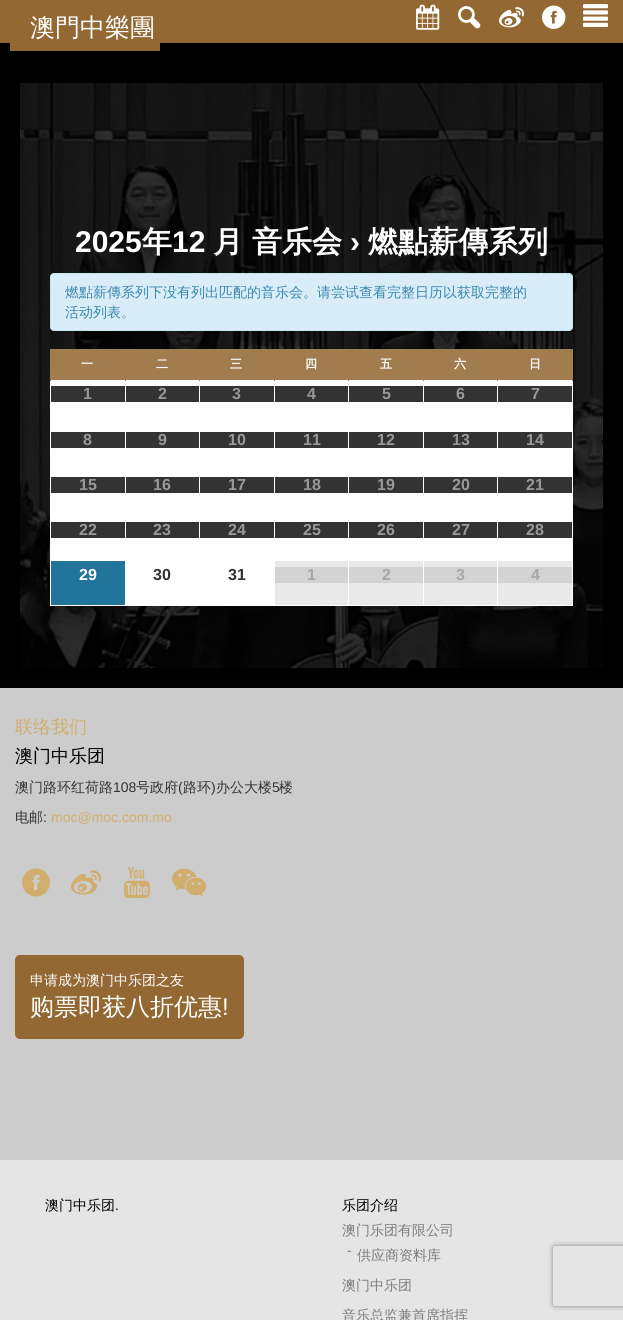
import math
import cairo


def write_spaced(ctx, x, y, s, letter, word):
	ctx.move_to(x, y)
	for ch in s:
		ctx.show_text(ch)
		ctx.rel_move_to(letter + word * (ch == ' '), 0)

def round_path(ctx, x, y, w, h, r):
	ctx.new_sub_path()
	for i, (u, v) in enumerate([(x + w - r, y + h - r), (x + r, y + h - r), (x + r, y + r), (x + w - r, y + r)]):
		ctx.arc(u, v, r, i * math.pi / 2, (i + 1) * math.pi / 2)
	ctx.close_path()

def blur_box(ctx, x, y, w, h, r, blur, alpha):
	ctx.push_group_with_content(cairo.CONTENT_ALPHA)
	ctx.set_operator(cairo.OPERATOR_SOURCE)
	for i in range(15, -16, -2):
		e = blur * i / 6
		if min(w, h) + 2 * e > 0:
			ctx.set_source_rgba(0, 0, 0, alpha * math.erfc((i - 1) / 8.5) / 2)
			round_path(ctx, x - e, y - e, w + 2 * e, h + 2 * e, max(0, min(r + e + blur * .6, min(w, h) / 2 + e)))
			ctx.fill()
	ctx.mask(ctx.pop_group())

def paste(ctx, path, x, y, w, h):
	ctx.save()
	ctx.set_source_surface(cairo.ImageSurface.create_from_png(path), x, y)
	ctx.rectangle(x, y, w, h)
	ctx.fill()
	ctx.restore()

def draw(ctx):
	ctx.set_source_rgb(0, 0, 0)
	ctx.paint()
	ctx.set_source_rgb(0.58, 0.408, 0.2)
	ctx.rectangle(0, 0, 623, 43)
	ctx.fill()
	ctx.rectangle(10, 43, 150, 8)
	ctx.fill()
	ctx.select_font_face('WenQuanYi Zen Hei Medium')
	ctx.set_font_size(25)
	ctx.set_source_rgb(1, 1, 1)
	ctx.move_to(30, 36)
	ctx.show_text('澳門中樂團')
	paste(ctx, 'media/1.png', 416, 4, 24, 26)
	paste(ctx, 'media/2.png', 458, 6, 23, 23)
	paste(ctx, 'media/3.png', 499, 7, 25, 21)
	paste(ctx, 'media/4.png', 542, 5, 24, 24)
	paste(ctx, 'media/5.png', 583, 4, 25, 23)
	paste(ctx, 'media/6.png', 20, 83, 583, 585)
	ctx.select_font_face('Liberation Sans', cairo.FONT_SLANT_NORMAL, cairo.FONT_WEIGHT_BOLD)
	ctx.set_font_size(30)
	ctx.move_to(75, 252)
	ctx.show_text('2025')
	ctx.select_font_face('WenQuanYi Zen Hei', cairo.FONT_SLANT_NORMAL, cairo.FONT_WEIGHT_BOLD)
	ctx.move_to(142, 252)
	ctx.show_text('年')
	ctx.select_font_face('Liberation Sans', cairo.FONT_SLANT_NORMAL, cairo.FONT_WEIGHT_BOLD)
	ctx.move_to(172, 252)
	ctx.show_text('12')
	ctx.select_font_face('WenQuanYi Zen Hei', cairo.FONT_SLANT_NORMAL, cairo.FONT_WEIGHT_BOLD)
	ctx.move_to(213, 252)
	ctx.show_text('月 音乐会')
	ctx.select_font_face('Liberation Sans', cairo.FONT_SLANT_NORMAL, cairo.FONT_WEIGHT_BOLD)
	ctx.move_to(350, 252)
	ctx.show_text('›')
	ctx.select_font_face('WenQuanYi Zen Hei', cairo.FONT_SLANT_NORMAL, cairo.FONT_WEIGHT_BOLD)
	ctx.move_to(368, 252)
	ctx.show_text('燃點薪傳系列')
	ctx.set_source_rgb(0.851, 0.929, 0.969)
	round_path(ctx, 50.5, 273.5, 522, 57, 3.5)
	ctx.fill_preserve()
	ctx.set_source_rgb(0.737, 0.91, 0.945)
	ctx.set_line_width(1)
	ctx.stroke()
	ctx.select_font_face('WenQuanYi Zen Hei Medium')
	ctx.set_font_size(14)
	ctx.set_source_rgb(0.227, 0.529, 0.678)
	ctx.move_to(65, 297)
	ctx.show_text('燃點薪傳系列下没有列出匹配的音乐会。请尝试查看完整日历以获取完整的')
	ctx.move_to(65, 317)
	ctx.show_text('活动列表。')
	ctx.set_source_rgb(1, 1, 1)
	ctx.rectangle(51, 380, 521, 225)
	ctx.fill()
	ctx.set_source_rgb(0.631, 0.486, 0.306)
	ctx.rectangle(51, 349, 74, 31)
	ctx.fill()
	ctx.set_source_rgb(1, 1, 1)
	ctx.rectangle(572, 380, 1, 226)
	ctx.rectangle(50, 605, 523, 1)
	ctx.rectangle(50, 380, 1, 226)
	ctx.fill()
	ctx.set_source_rgb(0.631, 0.486, 0.306)
	ctx.rectangle(50, 349, 1, 32)
	ctx.fill()
	ctx.select_font_face('WenQuanYi Zen Hei', cairo.FONT_SLANT_NORMAL, cairo.FONT_WEIGHT_BOLD)
	ctx.set_font_size(12)
	ctx.set_source_rgb(1, 1, 1)
	write_spaced(ctx, 81, 368, '一', 1, 0)
	ctx.set_source_rgb(0.631, 0.486, 0.306)
	ctx.rectangle(126, 349, 73, 31)
	ctx.fill()
	ctx.rectangle(125, 349, 1, 32)
	ctx.fill()
	ctx.set_source_rgb(1, 1, 1)
	write_spaced(ctx, 156, 368, '二', 1, 0)
	ctx.set_source_rgb(0.631, 0.486, 0.306)
	ctx.rectangle(200, 349, 74, 31)
	ctx.fill()
	ctx.rectangle(199, 349, 1, 32)
	ctx.fill()
	ctx.set_source_rgb(1, 1, 1)
	write_spaced(ctx, 230, 368, '三', 1, 0)
	ctx.set_source_rgb(0.631, 0.486, 0.306)
	ctx.rectangle(275, 349, 73, 31)
	ctx.fill()
	ctx.rectangle(274, 349, 1, 32)
	ctx.fill()
	ctx.set_source_rgb(1, 1, 1)
	write_spaced(ctx, 305, 368, '四', 1, 0)
	ctx.set_source_rgb(0.631, 0.486, 0.306)
	ctx.rectangle(349, 349, 74, 31)
	ctx.fill()
	ctx.rectangle(348, 349, 1, 32)
	ctx.fill()
	ctx.set_source_rgb(1, 1, 1)
	write_spaced(ctx, 380, 368, '五', 1, 0)
	ctx.set_source_rgb(0.631, 0.486, 0.306)
	ctx.rectangle(424, 349, 73, 31)
	ctx.fill()
	ctx.rectangle(423, 349, 1, 32)
	ctx.fill()
	ctx.set_source_rgb(1, 1, 1)
	write_spaced(ctx, 454, 368, '六', 1, 0)
	ctx.set_source_rgb(0.631, 0.486, 0.306)
	ctx.rectangle(498, 349, 74, 31)
	ctx.rectangle(572, 349, 1, 32)
	ctx.rectangle(497, 349, 1, 32)
	ctx.fill()
	ctx.set_source_rgb(1, 1, 1)
	write_spaced(ctx, 529, 368, '日', 1, 0)
	ctx.set_source_rgb(0.2, 0.2, 0.2)
	ctx.rectangle(51, 386, 74, 16)
	ctx.fill()
	ctx.select_font_face('Liberation Sans', cairo.FONT_SLANT_NORMAL, cairo.FONT_WEIGHT_BOLD)
	ctx.set_font_size(16)
	ctx.set_source_rgb(0.6, 0.6, 0.6)
	ctx.move_to(83, 399)
	ctx.show_text('1')
	ctx.set_source_rgb(0.2, 0.2, 0.2)
	ctx.rectangle(126, 386, 73, 16)
	ctx.fill()
	ctx.set_source_rgb(0.6, 0.6, 0.6)
	ctx.move_to(158, 399)
	ctx.show_text('2')
	ctx.set_source_rgb(0.2, 0.2, 0.2)
	ctx.rectangle(200, 386, 74, 16)
	ctx.fill()
	ctx.set_source_rgb(0.6, 0.6, 0.6)
	ctx.move_to(232, 399)
	ctx.show_text('3')
	ctx.set_source_rgb(0.2, 0.2, 0.2)
	ctx.rectangle(275, 386, 73, 16)
	ctx.fill()
	ctx.set_source_rgb(0.6, 0.6, 0.6)
	ctx.move_to(307, 399)
	ctx.show_text('4')
	ctx.set_source_rgb(0.2, 0.2, 0.2)
	ctx.rectangle(349, 386, 74, 16)
	ctx.fill()
	ctx.set_source_rgb(0.6, 0.6, 0.6)
	ctx.move_to(382, 399)
	ctx.show_text('5')
	ctx.set_source_rgb(0.2, 0.2, 0.2)
	ctx.rectangle(424, 386, 73, 16)
	ctx.fill()
	ctx.set_source_rgb(0.6, 0.6, 0.6)
	ctx.move_to(456, 399)
	ctx.show_text('6')
	ctx.set_source_rgb(0.2, 0.2, 0.2)
	ctx.rectangle(498, 386, 74, 16)
	ctx.fill()
	ctx.set_source_rgb(0.6, 0.6, 0.6)
	ctx.move_to(531, 399)
	ctx.show_text('7')
	ctx.set_source_rgb(0.2, 0.2, 0.2)
	ctx.rectangle(51, 432, 74, 16)
	ctx.fill()
	ctx.set_source_rgb(0.6, 0.6, 0.6)
	ctx.move_to(83, 445)
	ctx.show_text('8')
	ctx.set_source_rgb(0.2, 0.2, 0.2)
	ctx.rectangle(126, 432, 73, 16)
	ctx.fill()
	ctx.set_source_rgb(0.6, 0.6, 0.6)
	ctx.move_to(158, 445)
	ctx.show_text('9')
	ctx.set_source_rgb(0.2, 0.2, 0.2)
	ctx.rectangle(200, 432, 74, 16)
	ctx.fill()
	ctx.set_source_rgb(0.6, 0.6, 0.6)
	ctx.move_to(228, 445)
	ctx.show_text('10')
	ctx.set_source_rgb(0.2, 0.2, 0.2)
	ctx.rectangle(275, 432, 73, 16)
	ctx.fill()
	ctx.set_source_rgb(0.6, 0.6, 0.6)
	ctx.move_to(303, 445)
	ctx.show_text('11')
	ctx.set_source_rgb(0.2, 0.2, 0.2)
	ctx.rectangle(349, 432, 74, 16)
	ctx.fill()
	ctx.set_source_rgb(0.6, 0.6, 0.6)
	ctx.move_to(377, 445)
	ctx.show_text('12')
	ctx.set_source_rgb(0.2, 0.2, 0.2)
	ctx.rectangle(424, 432, 73, 16)
	ctx.fill()
	ctx.set_source_rgb(0.6, 0.6, 0.6)
	ctx.move_to(452, 445)
	ctx.show_text('13')
	ctx.set_source_rgb(0.2, 0.2, 0.2)
	ctx.rectangle(498, 432, 74, 16)
	ctx.fill()
	ctx.set_source_rgb(0.6, 0.6, 0.6)
	ctx.move_to(526, 445)
	ctx.show_text('14')
	ctx.set_source_rgb(0.2, 0.2, 0.2)
	ctx.rectangle(51, 477, 74, 16)
	ctx.fill()
	ctx.set_source_rgb(0.6, 0.6, 0.6)
	ctx.move_to(79, 490)
	ctx.show_text('15')
	ctx.set_source_rgb(0.2, 0.2, 0.2)
	ctx.rectangle(126, 477, 73, 16)
	ctx.fill()
	ctx.set_source_rgb(0.6, 0.6, 0.6)
	ctx.move_to(153, 490)
	ctx.show_text('16')
	ctx.set_source_rgb(0.2, 0.2, 0.2)
	ctx.rectangle(200, 477, 74, 16)
	ctx.fill()
	ctx.set_source_rgb(0.6, 0.6, 0.6)
	ctx.move_to(228, 490)
	ctx.show_text('17')
	ctx.set_source_rgb(0.2, 0.2, 0.2)
	ctx.rectangle(275, 477, 73, 16)
	ctx.fill()
	ctx.set_source_rgb(0.6, 0.6, 0.6)
	ctx.move_to(303, 490)
	ctx.show_text('18')
	ctx.set_source_rgb(0.2, 0.2, 0.2)
	ctx.rectangle(349, 477, 74, 16)
	ctx.fill()
	ctx.set_source_rgb(0.6, 0.6, 0.6)
	ctx.move_to(377, 490)
	ctx.show_text('19')
	ctx.set_source_rgb(0.2, 0.2, 0.2)
	ctx.rectangle(424, 477, 73, 16)
	ctx.fill()
	ctx.set_source_rgb(0.6, 0.6, 0.6)
	ctx.move_to(452, 490)
	ctx.show_text('20')
	ctx.set_source_rgb(0.2, 0.2, 0.2)
	ctx.rectangle(498, 477, 74, 16)
	ctx.fill()
	ctx.set_source_rgb(0.6, 0.6, 0.6)
	ctx.move_to(526, 490)
	ctx.show_text('21')
	ctx.set_source_rgb(0.2, 0.2, 0.2)
	ctx.rectangle(51, 522, 74, 16)
	ctx.fill()
	ctx.set_source_rgb(0.6, 0.6, 0.6)
	ctx.move_to(79, 535)
	ctx.show_text('22')
	ctx.set_source_rgb(0.2, 0.2, 0.2)
	ctx.rectangle(126, 522, 73, 16)
	ctx.fill()
	ctx.set_source_rgb(0.6, 0.6, 0.6)
	ctx.move_to(153, 535)
	ctx.show_text('23')
	ctx.set_source_rgb(0.2, 0.2, 0.2)
	ctx.rectangle(200, 522, 74, 16)
	ctx.fill()
	ctx.set_source_rgb(0.6, 0.6, 0.6)
	ctx.move_to(228, 535)
	ctx.show_text('24')
	ctx.set_source_rgb(0.2, 0.2, 0.2)
	ctx.rectangle(275, 522, 73, 16)
	ctx.fill()
	ctx.set_source_rgb(0.6, 0.6, 0.6)
	ctx.move_to(303, 535)
	ctx.show_text('25')
	ctx.set_source_rgb(0.2, 0.2, 0.2)
	ctx.rectangle(349, 522, 74, 16)
	ctx.fill()
	ctx.set_source_rgb(0.6, 0.6, 0.6)
	ctx.move_to(377, 535)
	ctx.show_text('26')
	ctx.set_source_rgb(0.2, 0.2, 0.2)
	ctx.rectangle(424, 522, 73, 16)
	ctx.fill()
	ctx.set_source_rgb(0.6, 0.6, 0.6)
	ctx.move_to(452, 535)
	ctx.show_text('27')
	ctx.set_source_rgb(0.2, 0.2, 0.2)
	ctx.rectangle(498, 522, 74, 16)
	ctx.fill()
	ctx.set_source_rgb(0.6, 0.6, 0.6)
	ctx.move_to(526, 535)
	ctx.show_text('28')
	ctx.set_source_rgb(0.129, 0.459, 0.608)
	ctx.rectangle(51, 561, 74, 44)
	ctx.fill()
	ctx.set_source_rgb(1, 1, 1)
	ctx.move_to(79, 580)
	ctx.show_text('29')
	ctx.set_source_rgb(0.2, 0.2, 0.2)
	ctx.move_to(153, 580)
	ctx.show_text('30')
	ctx.move_to(228, 580)
	ctx.show_text('31')
	ctx.set_source_rgb(0.914, 0.914, 0.914)
	ctx.rectangle(275, 561, 73, 44)
	ctx.fill()
	ctx.set_source_rgb(0.827, 0.827, 0.827)
	ctx.rectangle(275, 567, 73, 16)
	ctx.fill()
	ctx.set_source_rgb(0.655, 0.655, 0.655)
	ctx.move_to(307, 580)
	ctx.show_text('1')
	ctx.set_source_rgb(0.914, 0.914, 0.914)
	ctx.rectangle(349, 561, 74, 44)
	ctx.fill()
	ctx.set_source_rgb(0.827, 0.827, 0.827)
	ctx.rectangle(349, 567, 74, 16)
	ctx.fill()
	ctx.set_source_rgb(0.655, 0.655, 0.655)
	ctx.move_to(382, 580)
	ctx.show_text('2')
	ctx.set_source_rgb(0.914, 0.914, 0.914)
	ctx.rectangle(424, 561, 73, 44)
	ctx.fill()
	ctx.set_source_rgb(0.827, 0.827, 0.827)
	ctx.rectangle(424, 567, 73, 16)
	ctx.fill()
	ctx.set_source_rgb(0.655, 0.655, 0.655)
	ctx.move_to(456, 580)
	ctx.show_text('3')
	ctx.set_source_rgb(0.914, 0.914, 0.914)
	ctx.rectangle(498, 561, 74, 44)
	ctx.fill()
	ctx.set_source_rgb(0.827, 0.827, 0.827)
	ctx.rectangle(498, 567, 74, 16)
	ctx.fill()
	ctx.set_source_rgb(0.655, 0.655, 0.655)
	ctx.move_to(531, 580)
	ctx.show_text('4')
	ctx.set_source_rgb(0.8, 0.8, 0.8)
	ctx.rectangle(0, 688, 623, 472)
	ctx.fill()
	ctx.select_font_face('WenQuanYi Zen Hei Medium')
	ctx.set_font_size(18)
	ctx.set_source_rgb(0.82, 0.682, 0.427)
	ctx.move_to(15, 733)
	ctx.show_text('联络我们')
	ctx.set_source_rgb(0, 0, 0)
	ctx.move_to(15, 762)
	ctx.show_text('澳门中乐团')
	ctx.set_font_size(14)
	ctx.set_source_rgb(0.2, 0.2, 0.2)
	ctx.move_to(15, 792)
	ctx.show_text('澳门路环红荷路')
	ctx.select_font_face('Liberation Sans')
	ctx.move_to(113, 792)
	ctx.show_text('108')
	ctx.select_font_face('WenQuanYi Zen Hei Medium')
	ctx.move_to(136, 792)
	ctx.show_text('号政府')
	ctx.select_font_face('Liberation Sans')
	ctx.move_to(178, 792)
	ctx.show_text('(')
	ctx.select_font_face('WenQuanYi Zen Hei Medium')
	ctx.move_to(183, 792)
	ctx.show_text('路环')
	ctx.select_font_face('Liberation Sans')
	ctx.move_to(211, 792)
	ctx.show_text(')')
	ctx.select_font_face('WenQuanYi Zen Hei Medium')
	ctx.move_to(216, 792)
	ctx.show_text('办公大楼')
	ctx.select_font_face('Liberation Sans')
	ctx.move_to(272, 792)
	ctx.show_text('5')
	ctx.select_font_face('WenQuanYi Zen Hei Medium')
	ctx.move_to(279, 792)
	ctx.show_text('楼')
	ctx.move_to(15, 822)
	ctx.show_text('电邮')
	ctx.select_font_face('Liberation Sans')
	ctx.move_to(43, 822)
	ctx.show_text(':')
	ctx.set_source_rgb(0.82, 0.682, 0.427)
	ctx.move_to(51, 822)
	ctx.show_text('moc@moc.com.mo')
	paste(ctx, 'media/7.png', 22, 868, 29, 29)
	paste(ctx, 'media/8.png', 71, 870, 30, 25)
	paste(ctx, 'media/9.png', 124, 867, 26, 31)
	paste(ctx, 'media/10.png', 172, 868, 35, 29)
	ctx.set_source_rgb(0.58, 0.408, 0.2)
	round_path(ctx, 15, 955, 229, 84, 5)
	ctx.fill()
	ctx.select_font_face('WenQuanYi Zen Hei Medium')
	ctx.set_source_rgb(1, 1, 1)
	ctx.move_to(30, 985)
	ctx.show_text('申请成为澳门中乐团之友')
	ctx.set_font_size(24)
	ctx.move_to(30, 1015)
	ctx.show_text('购票即获八折优惠')
	ctx.select_font_face('Liberation Sans')
	ctx.move_to(222, 1015)
	ctx.show_text('!')
	ctx.set_source_rgb(0.898, 0.898, 0.898)
	ctx.rectangle(0, 1160, 623, 160)
	ctx.fill()
	ctx.select_font_face('WenQuanYi Zen Hei Medium')
	ctx.set_font_size(14)
	ctx.set_source_rgb(0, 0, 0)
	ctx.move_to(45, 1210)
	ctx.show_text('澳门中乐团')
	ctx.select_font_face('Liberation Sans')
	ctx.move_to(115, 1210)
	ctx.show_text('.')
	ctx.select_font_face('WenQuanYi Zen Hei Medium')
	ctx.move_to(342, 1210)
	ctx.show_text('乐团介绍')
	ctx.set_source_rgb(0.49, 0.49, 0.49)
	ctx.move_to(342, 1235)
	ctx.show_text('澳门乐团有限公司')
	ctx.select_font_face('Liberation Sans')
	ctx.move_to(347, 1255)
	ctx.show_text('-')
	ctx.select_font_face('WenQuanYi Zen Hei Medium')
	for x, y, s in [
		(357, 1260, '供应商资料库'),
		(342, 1290, '澳门中乐团'),
		(342, 1320, '音乐总监兼首席指挥'),
	]:
		ctx.move_to(x, y)
		ctx.show_text(s)
	ctx.save()
	ctx.set_fill_rule(cairo.FILL_RULE_EVEN_ODD)
	ctx.new_path()
	ctx.move_to(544, 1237)
	ctx.line_to(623, 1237)
	ctx.line_to(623, 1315)
	ctx.line_to(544, 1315)
	ctx.close_path()
	ctx.move_to(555, 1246)
	ctx.line_to(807, 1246)
	ctx.curve_to(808, 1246, 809, 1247, 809, 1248)
	ctx.line_to(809, 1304)
	ctx.curve_to(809, 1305, 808, 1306, 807, 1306)
	ctx.line_to(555, 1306)
	ctx.curve_to(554, 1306, 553, 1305, 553, 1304)
	ctx.line_to(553, 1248)
	ctx.curve_to(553, 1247, 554, 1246, 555, 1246)
	ctx.close_path()
	ctx.clip()
	ctx.set_source_rgb(0.502, 0.502, 0.502)
	blur_box(ctx, 553, 1246, 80, 60, 2, 2.5, 1)
	ctx.restore()


surface = cairo.ImageSurface(cairo.FORMAT_RGB24, 623, 1320)
ctx = cairo.Context(surface)
options = cairo.FontOptions()
options.set_hint_metrics(cairo.HINT_METRICS_OFF)
options.set_hint_style(cairo.HINT_STYLE_NONE)
ctx.set_font_options(options)
ctx.set_miter_limit(4)
draw(ctx)
surface.write_to_png('image.png')
